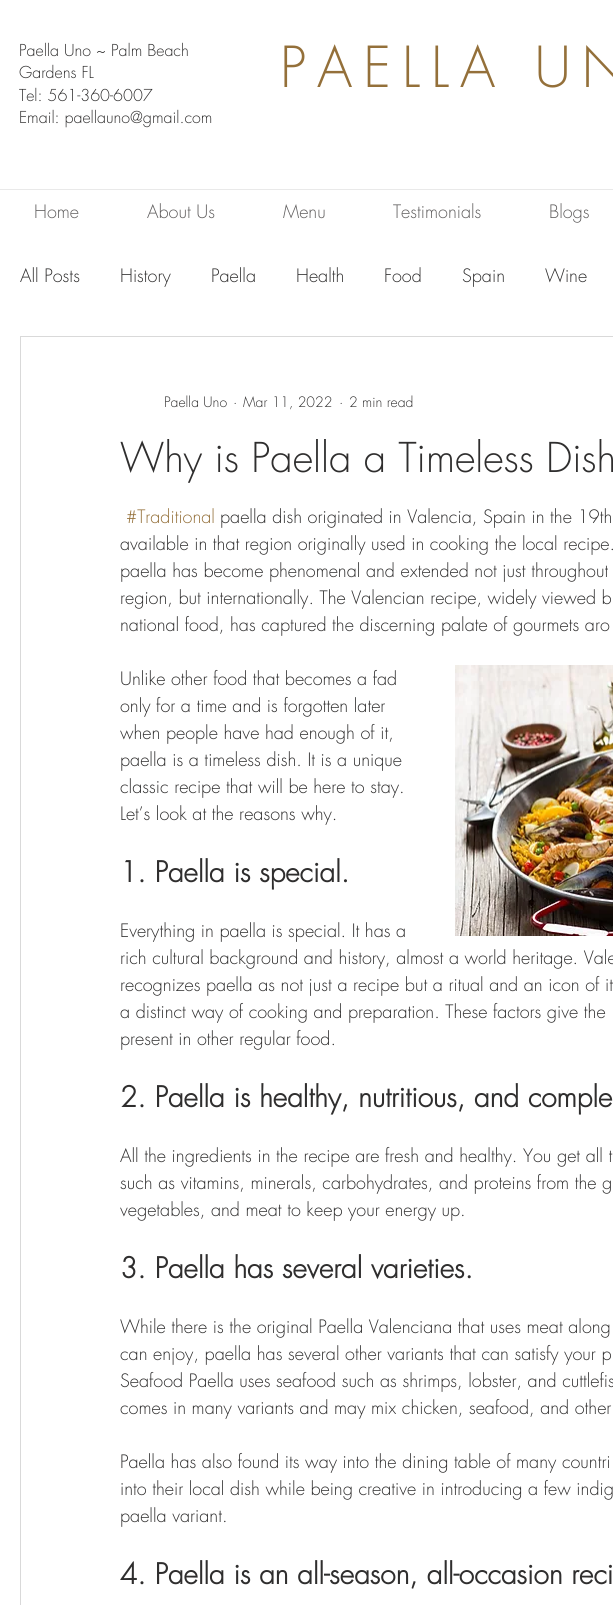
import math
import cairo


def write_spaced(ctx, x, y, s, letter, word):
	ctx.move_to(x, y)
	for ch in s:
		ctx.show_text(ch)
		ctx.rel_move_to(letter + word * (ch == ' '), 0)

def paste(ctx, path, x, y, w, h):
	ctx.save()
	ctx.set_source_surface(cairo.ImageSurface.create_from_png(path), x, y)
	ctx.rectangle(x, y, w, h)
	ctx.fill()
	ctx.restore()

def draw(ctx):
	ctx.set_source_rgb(1, 1, 1)
	ctx.paint()
	ctx.select_font_face('futura Light')
	ctx.set_font_size(16)
	ctx.set_source_rgb(0.184, 0.18, 0.18)
	for x, y, s in [
		(19, 56, 'Paella Uno ~ Palm Beach'),
		(19, 78, 'Gardens FL'),
		(19, 101, 'Tel: 561-360-6007'),
		(19, 123, 'Email: paellauno@gmail.com'),
	]:
		ctx.move_to(x, y)
		ctx.show_text(s)
	ctx.set_font_size(55)
	ctx.set_source_rgb(0.58, 0.439, 0.227)
	write_spaced(ctx, 280, 87, 'PAELLA UN', 11, 0)
	ctx.set_source_rgb(0.914, 0.914, 0.914)
	ctx.rectangle(0, 189, 613, 1)
	ctx.fill()
	ctx.set_font_size(18)
	ctx.set_source_rgb(0.376, 0.369, 0.369)
	for x, y, s in [
		(34, 218, 'Home'),
		(147, 218, 'About Us'),
		(283, 218, 'Menu'),
		(393, 218, 'Testimonials'),
		(549, 218, 'Blogs'),
	]:
		ctx.move_to(x, y)
		ctx.show_text(s)
	ctx.set_source_rgb(0.184, 0.18, 0.18)
	for x, y, s in [
		(20, 282, 'All Posts'),
		(120, 282, 'History'),
		(211, 282, 'Paella'),
		(296, 282, 'Health'),
		(384, 282, 'Food'),
		(462, 282, 'Spain'),
		(545, 282, 'Wine'),
	]:
		ctx.move_to(x, y)
		ctx.show_text(s)
	ctx.rectangle(20.5, 336.5, 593, 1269)
	ctx.set_source_rgb(0.851, 0.851, 0.851)
	ctx.set_line_width(1)
	ctx.stroke()
	ctx.set_font_size(14)
	ctx.set_source_rgb(0.184, 0.18, 0.18)
	for x, y, s in [
		(164, 407, 'Paella Uno'),
		(233, 407, '·'),
		(243, 407, 'Mar 11, 2022'),
		(339, 407, '·'),
		(349, 407, '2 min read'),
	]:
		ctx.move_to(x, y)
		ctx.show_text(s)
	ctx.set_font_size(40)
	ctx.move_to(120, 472)
	ctx.show_text('Why is Paella a Timeless Dish')
	ctx.set_font_size(18)
	ctx.set_source_rgb(0.58, 0.439, 0.227)
	ctx.move_to(126, 523)
	ctx.show_text('#Traditional')
	ctx.set_source_rgb(0.184, 0.18, 0.18)
	for x, y, s in [
		(220, 523, 'paella dish originated in Valencia, Spain in the 19th'),
		(120, 550, 'available in that region originally used in cooking the local recipe.'),
		(120, 577, 'paella has become phenomenal and extended not just throughout'),
		(120, 604, 'region, but internationally. The Valencian recipe, widely viewed b'),
		(120, 631, 'national food, has captured the discerning palate of gourmets aro'),
		(120, 685, 'Unlike other food that becomes a fad'),
		(120, 712, 'only for a time and is forgotten later'),
		(120, 739, 'when people have had enough of it,'),
		(120, 766, 'paella is a timeless dish. It is a unique'),
		(120, 793, 'classic recipe that will be here to stay.'),
		(120, 820, 'Let’s look at the reasons why.'),
	]:
		ctx.move_to(x, y)
		ctx.show_text(s)
	paste(ctx, 'media/1.png', 455, 665, 158, 271)
	ctx.select_font_face('futura', cairo.FONT_SLANT_NORMAL, cairo.FONT_WEIGHT_BOLD)
	ctx.set_font_size(28)
	ctx.move_to(120, 882)
	ctx.show_text('1. Paella is special.')
	ctx.select_font_face('futura Light')
	ctx.set_font_size(18)
	for x, y, s in [
		(120, 937, 'Everything in paella is special. It has a'),
		(120, 964, 'rich cultural background and history, almost a world heritage. Vale'),
		(120, 991, 'recognizes paella as not just a recipe but a ritual and an icon of it'),
		(120, 1018, 'a distinct way of cooking and preparation. These factors give the'),
		(120, 1045, 'present in other regular food.'),
	]:
		ctx.move_to(x, y)
		ctx.show_text(s)
	ctx.select_font_face('futura', cairo.FONT_SLANT_NORMAL, cairo.FONT_WEIGHT_BOLD)
	ctx.set_font_size(28)
	ctx.move_to(120, 1107)
	ctx.show_text('2. Paella is healthy, nutritious, and comple')
	ctx.select_font_face('futura Light')
	ctx.set_font_size(18)
	for x, y, s in [
		(120, 1162, 'All the ingredients in the recipe are fresh and healthy. You get all t'),
		(120, 1189, 'such as vitamins, minerals, carbohydrates, and proteins from the g'),
		(120, 1216, 'vegetables, and meat to keep your energy up.'),
	]:
		ctx.move_to(x, y)
		ctx.show_text(s)
	ctx.select_font_face('futura', cairo.FONT_SLANT_NORMAL, cairo.FONT_WEIGHT_BOLD)
	ctx.set_font_size(28)
	ctx.move_to(120, 1278)
	ctx.show_text('3. Paella has several varieties.')
	ctx.select_font_face('futura Light')
	ctx.set_font_size(18)
	for x, y, s in [
		(120, 1333, 'While there is the original Paella Valenciana that uses meat along'),
		(120, 1360, 'can enjoy, paella has several other variants that can satisfy your p'),
		(120, 1387, 'Seafood Paella uses seafood such as shrimps, lobster, and cuttlefis'),
		(120, 1414, 'comes in many variants and may mix chicken, seafood, and other'),
		(120, 1468, 'Paella has also found its way into the dining table of many countri'),
		(120, 1495, 'into their local dish while being creative in introducing a few indig'),
		(120, 1522, 'paella variant.'),
	]:
		ctx.move_to(x, y)
		ctx.show_text(s)
	ctx.select_font_face('futura', cairo.FONT_SLANT_NORMAL, cairo.FONT_WEIGHT_BOLD)
	ctx.set_font_size(28)
	ctx.move_to(120, 1584)
	ctx.show_text('4. Paella is an all-season, all-occasion reci')


surface = cairo.ImageSurface(cairo.FORMAT_RGB24, 613, 1605)
ctx = cairo.Context(surface)
options = cairo.FontOptions()
options.set_hint_metrics(cairo.HINT_METRICS_OFF)
options.set_hint_style(cairo.HINT_STYLE_NONE)
ctx.set_font_options(options)
ctx.set_miter_limit(4)
draw(ctx)
surface.write_to_png('image.png')
